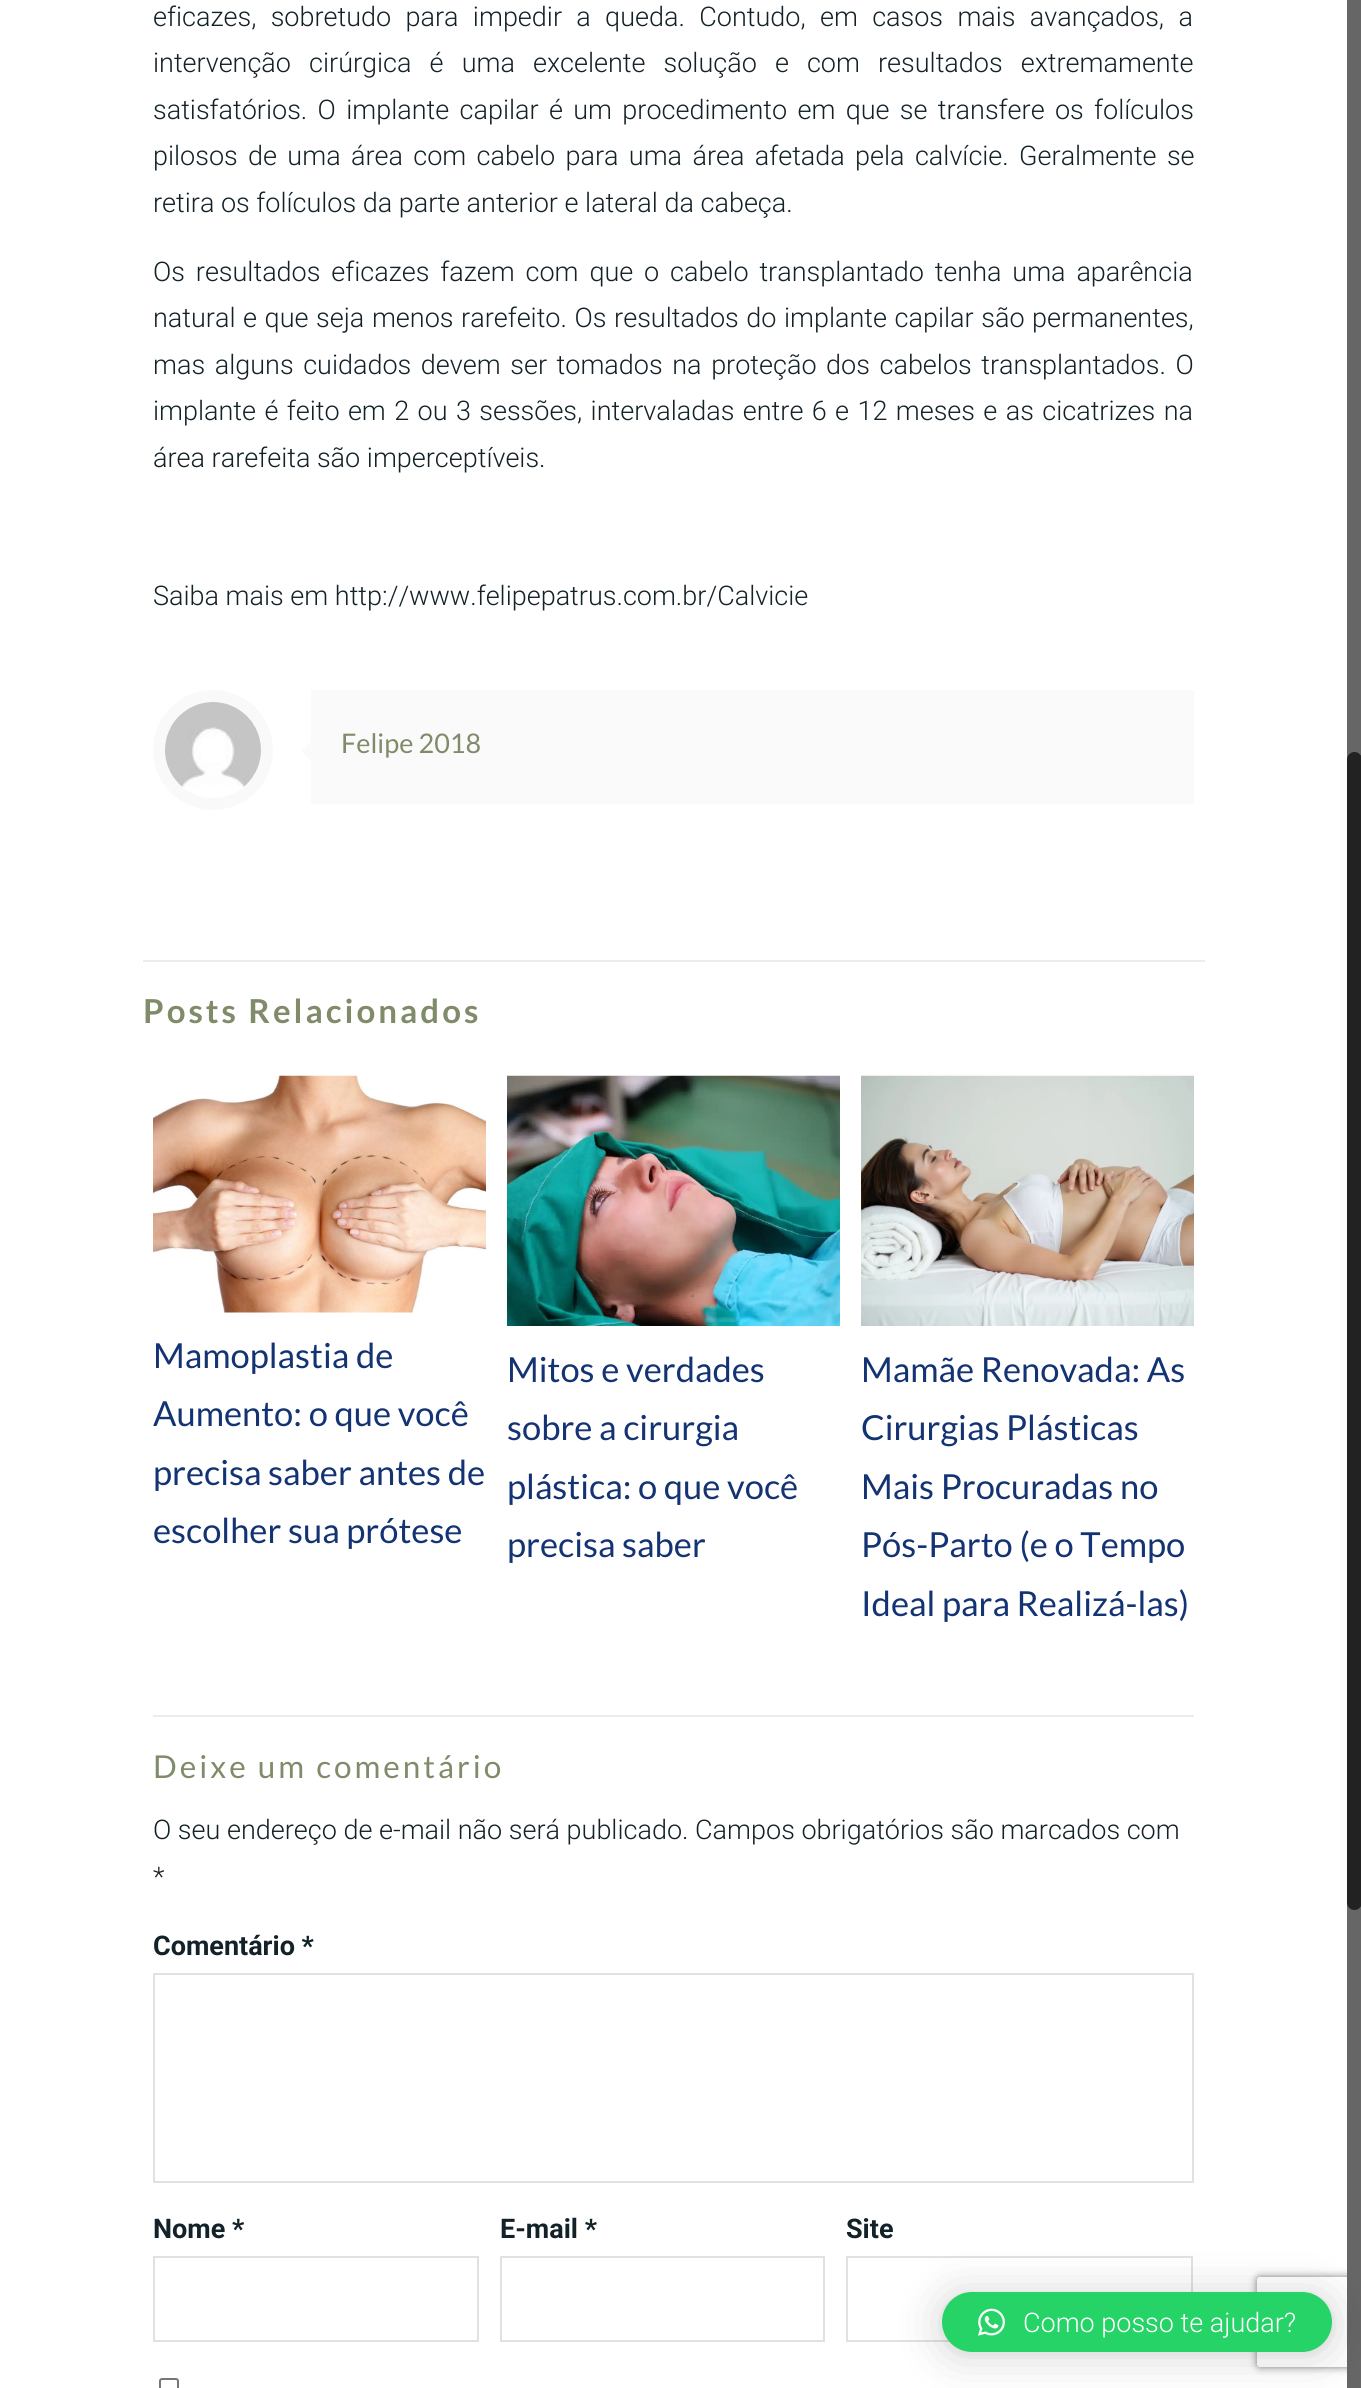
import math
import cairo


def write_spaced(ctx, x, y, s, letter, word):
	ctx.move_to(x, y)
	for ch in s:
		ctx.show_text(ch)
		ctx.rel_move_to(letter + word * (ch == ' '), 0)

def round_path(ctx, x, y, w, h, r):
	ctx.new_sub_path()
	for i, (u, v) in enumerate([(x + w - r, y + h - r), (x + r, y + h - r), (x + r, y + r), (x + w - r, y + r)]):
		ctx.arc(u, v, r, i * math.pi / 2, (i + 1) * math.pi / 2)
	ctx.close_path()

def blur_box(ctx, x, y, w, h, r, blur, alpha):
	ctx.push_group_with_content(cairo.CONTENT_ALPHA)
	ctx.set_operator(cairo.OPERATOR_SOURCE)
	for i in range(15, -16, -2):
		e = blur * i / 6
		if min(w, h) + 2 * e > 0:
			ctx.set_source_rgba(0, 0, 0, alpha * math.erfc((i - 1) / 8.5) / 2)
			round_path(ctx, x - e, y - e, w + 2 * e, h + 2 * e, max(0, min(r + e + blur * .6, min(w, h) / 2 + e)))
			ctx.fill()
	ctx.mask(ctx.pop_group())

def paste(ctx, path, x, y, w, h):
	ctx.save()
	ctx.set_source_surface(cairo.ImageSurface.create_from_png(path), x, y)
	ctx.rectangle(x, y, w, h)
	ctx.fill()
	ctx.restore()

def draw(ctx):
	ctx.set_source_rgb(1, 1, 1)
	ctx.paint()
	ctx.select_font_face('Roboto Light')
	ctx.set_font_size(27)
	ctx.set_source_rgb(0.075, 0.133, 0.157)
	write_spaced(ctx, 153, 26, 'eficazes, sobretudo para impedir a queda. Contudo, em casos mais avançados, a', 0, 7.75)
	write_spaced(ctx, 153, 72, 'intervenção cirúrgica é uma excelente solução e com resultados extremamente', 0, 11.5)
	write_spaced(ctx, 153, 119, 'satisfatórios. O implante capilar é um procedimento em que se transfere os folículos', 0, 3.75)
	write_spaced(ctx, 153, 165, 'pilosos de uma área com cabelo para uma área afetada pela calvície. Geralmente se', 0, 3.75)
	ctx.move_to(153, 212)
	ctx.show_text('retira os folículos da parte anterior e lateral da cabeça.')
	write_spaced(ctx, 153, 281, 'Os resultados eficazes fazem com que o cabelo transplantado tenha uma aparência', 0, 4.25)
	write_spaced(ctx, 153, 327, 'natural e que seja menos rarefeito. Os resultados do implante capilar são permanentes,', 0, 1)
	write_spaced(ctx, 153, 374, 'mas alguns cuidados devem ser tomados na proteção dos cabelos transplantados. O', 0, 3)
	write_spaced(ctx, 153, 420, 'implante é feito em 2 ou 3 sessões, intervaladas entre 6 e 12 meses e as cicatrizes na', 0, 1.8)
	ctx.move_to(153, 467)
	ctx.show_text('área rarefeita são imperceptíveis.')
	ctx.move_to(153, 605)
	ctx.show_text('Saiba mais em http://www.felipepatrus.com.br/Calvicie')
	ctx.new_path()
	ctx.arc(213, 750, 54, 0, 2 * math.pi)
	ctx.set_source_rgb(0.973, 0.973, 0.973)
	ctx.set_line_width(12)
	ctx.stroke()
	paste(ctx, 'media/1.png', 165, 702, 96, 85)
	ctx.set_source_rgb(0.98, 0.98, 0.98)
	ctx.rectangle(311, 690, 883, 114)
	ctx.fill()
	ctx.new_path()
	ctx.move_to(310.5, 742.5)
	ctx.line_to(310.5, 760.5)
	ctx.line_to(301.5, 751.5)
	ctx.close_path()
	ctx.fill()
	ctx.select_font_face('Lato')
	ctx.set_source_rgb(0.502, 0.545, 0.412)
	ctx.move_to(341, 753)
	ctx.show_text('Felipe 2018')
	ctx.set_source_rgb(0.922, 0.922, 0.922)
	ctx.rectangle(143, 960, 1062, 2)
	ctx.fill()
	ctx.select_font_face('Lato', cairo.FONT_SLANT_NORMAL, cairo.FONT_WEIGHT_BOLD)
	ctx.set_font_size(33)
	ctx.set_source_rgb(0.502, 0.545, 0.412)
	write_spaced(ctx, 143, 1023, 'Posts Relacionados', 3, 0)
	paste(ctx, 'media/2.png', 153, 1075, 333, 238)
	ctx.select_font_face('Lato')
	ctx.set_font_size(34.5)
	ctx.set_source_rgb(0.078, 0.2, 0.451)
	for x, y, s in [
		(153, 1368, 'Mamoplastia de'),
		(153, 1426, 'Aumento: o que você'),
		(153, 1485, 'precisa saber antes de'),
		(153, 1543, 'escolher sua prótese'),
	]:
		ctx.move_to(x, y)
		ctx.show_text(s)
	paste(ctx, 'media/3.png', 507, 1075, 333, 251)
	for x, y, s in [
		(507, 1382, 'Mitos e verdades'),
		(507, 1440, 'sobre a cirurgia'),
		(507, 1499, 'plástica: o que você'),
		(507, 1557, 'precisa saber'),
	]:
		ctx.move_to(x, y)
		ctx.show_text(s)
	paste(ctx, 'media/4.png', 861, 1075, 333, 251)
	for x, y, s in [
		(861, 1382, 'Mamãe Renovada: As'),
		(861, 1440, 'Cirurgias Plásticas'),
		(861, 1499, 'Mais Procuradas no'),
		(861, 1557, 'Pós-Parto (e o Tempo'),
		(861, 1616, 'Ideal para Realizá-las)'),
	]:
		ctx.move_to(x, y)
		ctx.show_text(s)
	ctx.set_source_rgb(0.922, 0.922, 0.922)
	ctx.rectangle(153, 1715, 1041, 2)
	ctx.fill()
	ctx.set_font_size(31.5)
	ctx.set_source_rgb(0.502, 0.545, 0.412)
	write_spaced(ctx, 153, 1778, 'Deixe um comentário', 3, 0)
	ctx.select_font_face('Roboto Light')
	ctx.set_font_size(27)
	ctx.set_source_rgb(0.075, 0.133, 0.157)
	ctx.move_to(153, 1839)
	ctx.show_text('O seu endereço de e-mail não será publicado. Campos obrigatórios são marcados com')
	ctx.move_to(153, 1886)
	ctx.show_text('*')
	ctx.select_font_face('Roboto', cairo.FONT_SLANT_NORMAL, cairo.FONT_WEIGHT_BOLD)
	ctx.move_to(153, 1955)
	ctx.show_text('Comentário *')
	ctx.rectangle(154, 1974, 1039, 208)
	ctx.set_source_rgb(0.882, 0.882, 0.882)
	ctx.set_line_width(2)
	ctx.stroke()
	ctx.set_source_rgb(0.075, 0.133, 0.157)
	ctx.move_to(153, 2238)
	ctx.show_text('Nome *')
	ctx.rectangle(154, 2257, 324, 84)
	ctx.set_source_rgb(0.882, 0.882, 0.882)
	ctx.stroke()
	ctx.set_source_rgb(0.075, 0.133, 0.157)
	ctx.move_to(500, 2238)
	ctx.show_text('E-mail *')
	ctx.rectangle(501, 2257, 323, 84)
	ctx.set_source_rgb(0.882, 0.882, 0.882)
	ctx.stroke()
	ctx.set_source_rgb(0.075, 0.133, 0.157)
	ctx.move_to(846, 2238)
	ctx.show_text('Site')
	ctx.rectangle(847, 2257, 345, 84)
	ctx.set_source_rgb(0.882, 0.882, 0.882)
	ctx.stroke()
	round_path(ctx, 160, 2379, 18, 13, 2)
	ctx.set_source_rgb(0.463, 0.463, 0.463)
	ctx.stroke()
	ctx.save()
	ctx.set_fill_rule(cairo.FILL_RULE_EVEN_ODD)
	ctx.new_path()
	ctx.move_to(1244, 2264)
	ctx.line_to(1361, 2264)
	ctx.line_to(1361, 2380)
	ctx.line_to(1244, 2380)
	ctx.close_path()
	ctx.move_to(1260, 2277)
	ctx.line_to(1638, 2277)
	ctx.curve_to(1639.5, 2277, 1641, 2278.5, 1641, 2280)
	ctx.line_to(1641, 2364)
	ctx.curve_to(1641, 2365.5, 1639.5, 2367, 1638, 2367)
	ctx.line_to(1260, 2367)
	ctx.curve_to(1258.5, 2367, 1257, 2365.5, 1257, 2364)
	ctx.line_to(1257, 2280)
	ctx.curve_to(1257, 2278.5, 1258.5, 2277, 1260, 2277)
	ctx.close_path()
	ctx.clip()
	ctx.set_source_rgb(0.502, 0.502, 0.502)
	blur_box(ctx, 1257, 2277, 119, 90, 3, 4, 1)
	ctx.restore()
	ctx.set_source_rgb(0.4, 0.4, 0.4)
	ctx.rectangle(1347, 0, 14, 2388)
	ctx.fill()
	ctx.set_source_rgb(0.133, 0.133, 0.133)
	round_path(ctx, 1347, 752, 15, 1158, 7.5)
	ctx.fill()
	ctx.set_source_rgb(0, 0, 0)
	blur_box(ctx, 942, 2295, 390, 60, 30, 24, 0.16)
	blur_box(ctx, 942, 2294, 390, 60, 30, 4.5, 0.06)
	ctx.set_source_rgb(0.145, 0.827, 0.4)
	round_path(ctx, 942, 2292, 390, 60, 30)
	ctx.fill()
	paste(ctx, 'media/5.png', 978, 2308, 27, 28)
	ctx.select_font_face('Roboto Light')
	ctx.set_source_rgb(1, 1, 1)
	ctx.move_to(1023, 2332)
	ctx.show_text('Como posso te ajudar?')


surface = cairo.ImageSurface(cairo.FORMAT_RGB24, 1361, 2388)
ctx = cairo.Context(surface)
options = cairo.FontOptions()
options.set_hint_metrics(cairo.HINT_METRICS_OFF)
options.set_hint_style(cairo.HINT_STYLE_NONE)
ctx.set_font_options(options)
ctx.set_miter_limit(4)
draw(ctx)
surface.write_to_png('image.png')
